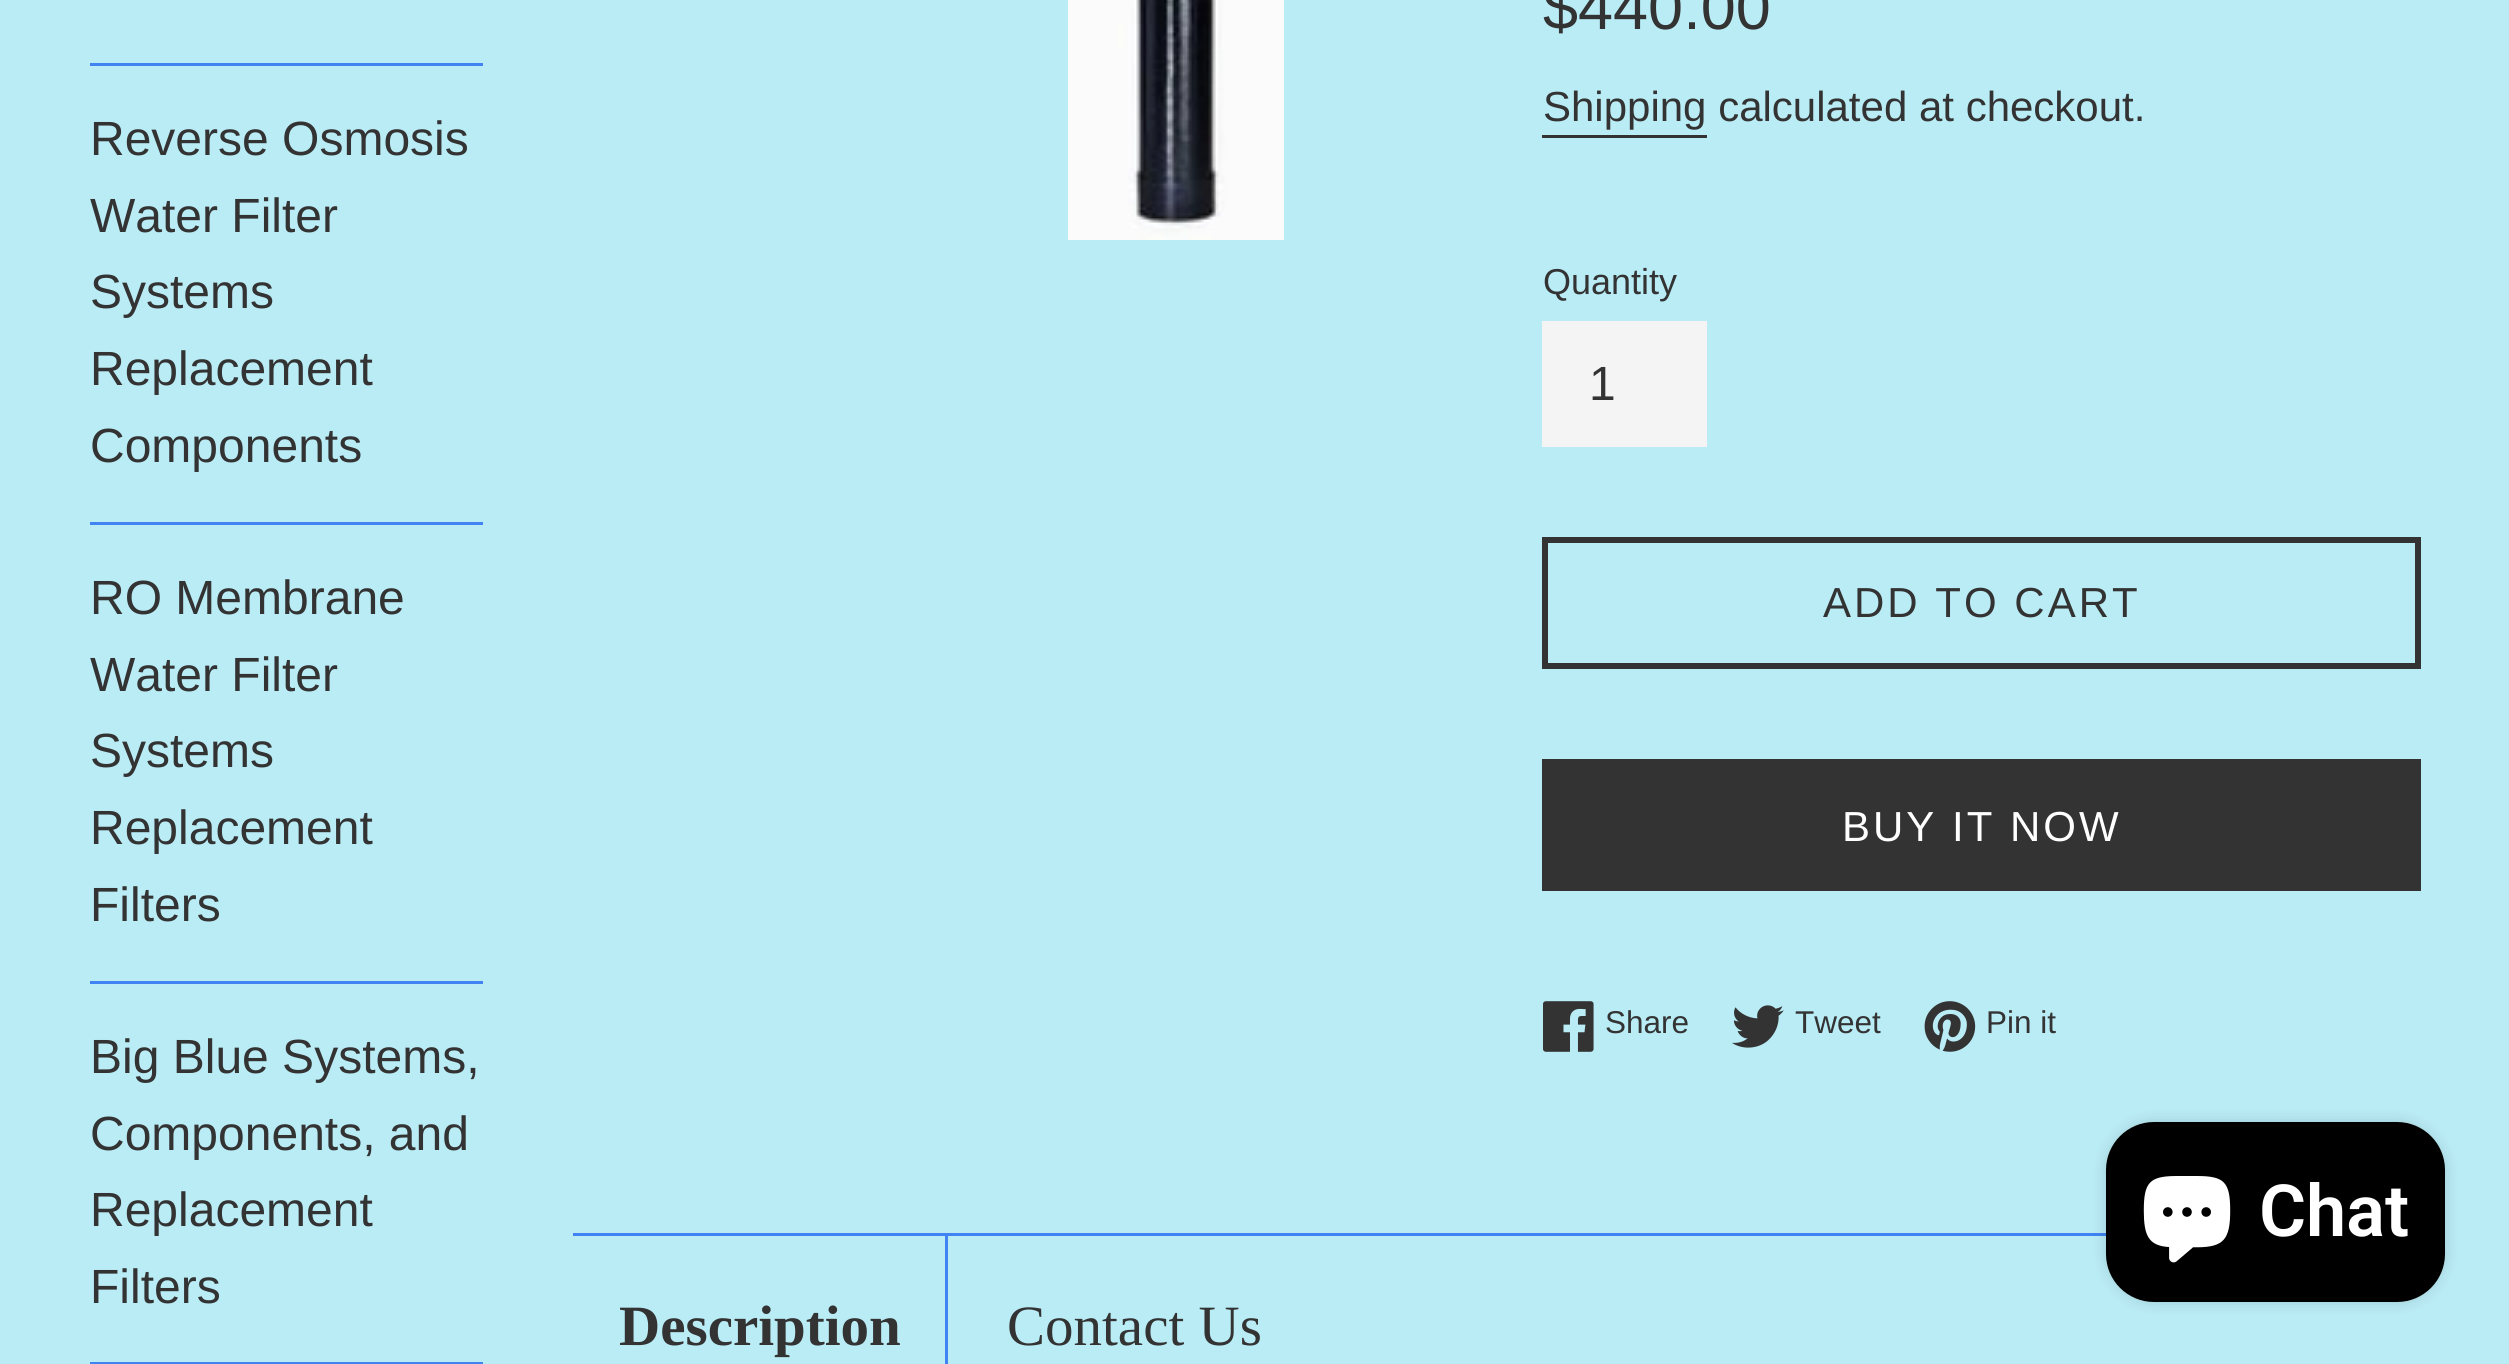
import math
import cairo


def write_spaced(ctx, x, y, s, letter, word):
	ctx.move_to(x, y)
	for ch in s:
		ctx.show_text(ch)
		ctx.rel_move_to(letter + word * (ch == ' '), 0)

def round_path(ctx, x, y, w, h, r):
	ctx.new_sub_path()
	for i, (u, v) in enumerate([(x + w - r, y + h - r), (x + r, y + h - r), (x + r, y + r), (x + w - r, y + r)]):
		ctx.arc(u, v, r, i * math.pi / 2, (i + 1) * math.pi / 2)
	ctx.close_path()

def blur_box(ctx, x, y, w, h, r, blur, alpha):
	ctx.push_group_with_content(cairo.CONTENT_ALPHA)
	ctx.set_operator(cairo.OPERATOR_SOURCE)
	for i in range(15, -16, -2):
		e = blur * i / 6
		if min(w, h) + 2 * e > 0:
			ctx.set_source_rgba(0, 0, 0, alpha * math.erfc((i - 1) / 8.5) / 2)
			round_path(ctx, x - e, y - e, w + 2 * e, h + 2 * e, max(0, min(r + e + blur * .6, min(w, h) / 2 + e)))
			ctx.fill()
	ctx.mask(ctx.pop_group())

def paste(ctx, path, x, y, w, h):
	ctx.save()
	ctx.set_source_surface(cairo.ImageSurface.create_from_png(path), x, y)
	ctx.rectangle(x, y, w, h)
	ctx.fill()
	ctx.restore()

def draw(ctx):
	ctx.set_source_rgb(0.729, 0.922, 0.961)
	ctx.paint()
	ctx.set_source_rgb(0.255, 0.514, 0.949)
	ctx.rectangle(90, 63, 393, 3)
	ctx.fill()
	ctx.rectangle(90, 522, 393, 3)
	ctx.fill()
	ctx.select_font_face('Liberation Sans')
	ctx.set_font_size(48)
	ctx.set_source_rgb(0.2, 0.2, 0.2)
	for x, y, s in [
		(90, 155, 'Reverse Osmosis'),
		(90, 232, 'Water Filter'),
		(90, 308, 'Systems'),
		(90, 385, 'Replacement'),
		(90, 462, 'Components'),
	]:
		ctx.move_to(x, y)
		ctx.show_text(s)
	ctx.set_source_rgb(0.255, 0.514, 0.949)
	ctx.rectangle(90, 981, 393, 3)
	ctx.fill()
	ctx.set_source_rgb(0.2, 0.2, 0.2)
	for x, y, s in [
		(90, 614, 'RO Membrane'),
		(90, 691, 'Water Filter'),
		(90, 767, 'Systems'),
		(90, 844, 'Replacement'),
		(90, 921, 'Filters'),
	]:
		ctx.move_to(x, y)
		ctx.show_text(s)
	ctx.set_source_rgb(0.255, 0.514, 0.949)
	ctx.rectangle(90, 1362, 393, 2)
	ctx.fill()
	ctx.set_source_rgb(0.2, 0.2, 0.2)
	for x, y, s in [
		(90, 1073, 'Big Blue Systems,'),
		(90, 1150, 'Components, and'),
		(90, 1226, 'Replacement'),
		(90, 1303, 'Filters'),
	]:
		ctx.move_to(x, y)
		ctx.show_text(s)
	paste(ctx, 'media/1.png', 1068, 0, 216, 240)
	ctx.set_font_size(63)
	ctx.move_to(1543, 29)
	ctx.show_text('$440.00')
	ctx.set_font_size(42)
	ctx.move_to(1543, 121)
	ctx.show_text('Shipping calculated at checkout.')
	ctx.rectangle(1542, 135, 165, 3)
	ctx.fill()
	ctx.set_font_size(36)
	ctx.move_to(1543, 294)
	ctx.show_text('Quantity')
	ctx.set_source_rgb(0.957, 0.957, 0.957)
	ctx.rectangle(1542, 321, 165, 126)
	ctx.fill()
	ctx.set_font_size(48)
	ctx.set_source_rgb(0.2, 0.2, 0.2)
	ctx.move_to(1589, 400)
	ctx.show_text('1')
	ctx.rectangle(1545, 540, 873, 126)
	ctx.set_line_width(6)
	ctx.stroke()
	ctx.set_font_size(42)
	write_spaced(ctx, 1823, 617, 'ADD TO CART', 3, 0)
	ctx.rectangle(1542, 759, 879, 132)
	ctx.fill()
	ctx.set_source_rgb(1, 1, 1)
	write_spaced(ctx, 1842, 841, 'BUY IT NOW', 3, 0)
	paste(ctx, 'media/2.png', 1543, 1001, 51, 51)
	ctx.set_font_size(31.5)
	ctx.set_source_rgb(0.2, 0.2, 0.2)
	ctx.move_to(1605, 1033)
	ctx.show_text('Share')
	paste(ctx, 'media/3.png', 1732, 1005, 52, 43)
	ctx.move_to(1795, 1033)
	ctx.show_text('Tweet')
	paste(ctx, 'media/4.png', 1924, 1001, 52, 51)
	ctx.move_to(1986, 1033)
	ctx.show_text('Pin it')
	ctx.set_source_rgb(0.255, 0.514, 0.949)
	ctx.rectangle(573, 1233, 1533, 3)
	ctx.fill()
	ctx.rectangle(945, 1236, 3, 128)
	ctx.fill()
	ctx.select_font_face('Liberation Serif', cairo.FONT_SLANT_NORMAL, cairo.FONT_WEIGHT_BOLD)
	ctx.set_font_size(57)
	ctx.set_source_rgb(0.2, 0.2, 0.2)
	ctx.move_to(619, 1345)
	ctx.show_text('Description')
	ctx.select_font_face('Liberation Serif')
	ctx.move_to(1007, 1345)
	ctx.show_text('Contact Us')
	ctx.set_source_rgb(0, 0, 0)
	blur_box(ctx, 2106, 1122, 339, 180, 48, 7.5, 0.15)
	ctx.set_source_rgb(0, 0, 0)
	round_path(ctx, 2106, 1122, 339, 180, 48)
	ctx.fill()
	paste(ctx, 'media/5.png', 2143, 1176, 88, 87)
	ctx.select_font_face('Roboto SemiBold')
	ctx.set_font_size(72)
	ctx.set_source_rgb(1, 1, 1)
	ctx.move_to(2259, 1236)
	ctx.show_text('Chat')


surface = cairo.ImageSurface(cairo.FORMAT_RGB24, 2509, 1364)
ctx = cairo.Context(surface)
options = cairo.FontOptions()
options.set_hint_metrics(cairo.HINT_METRICS_OFF)
options.set_hint_style(cairo.HINT_STYLE_NONE)
ctx.set_font_options(options)
ctx.set_miter_limit(4)
draw(ctx)
surface.write_to_png('image.png')
